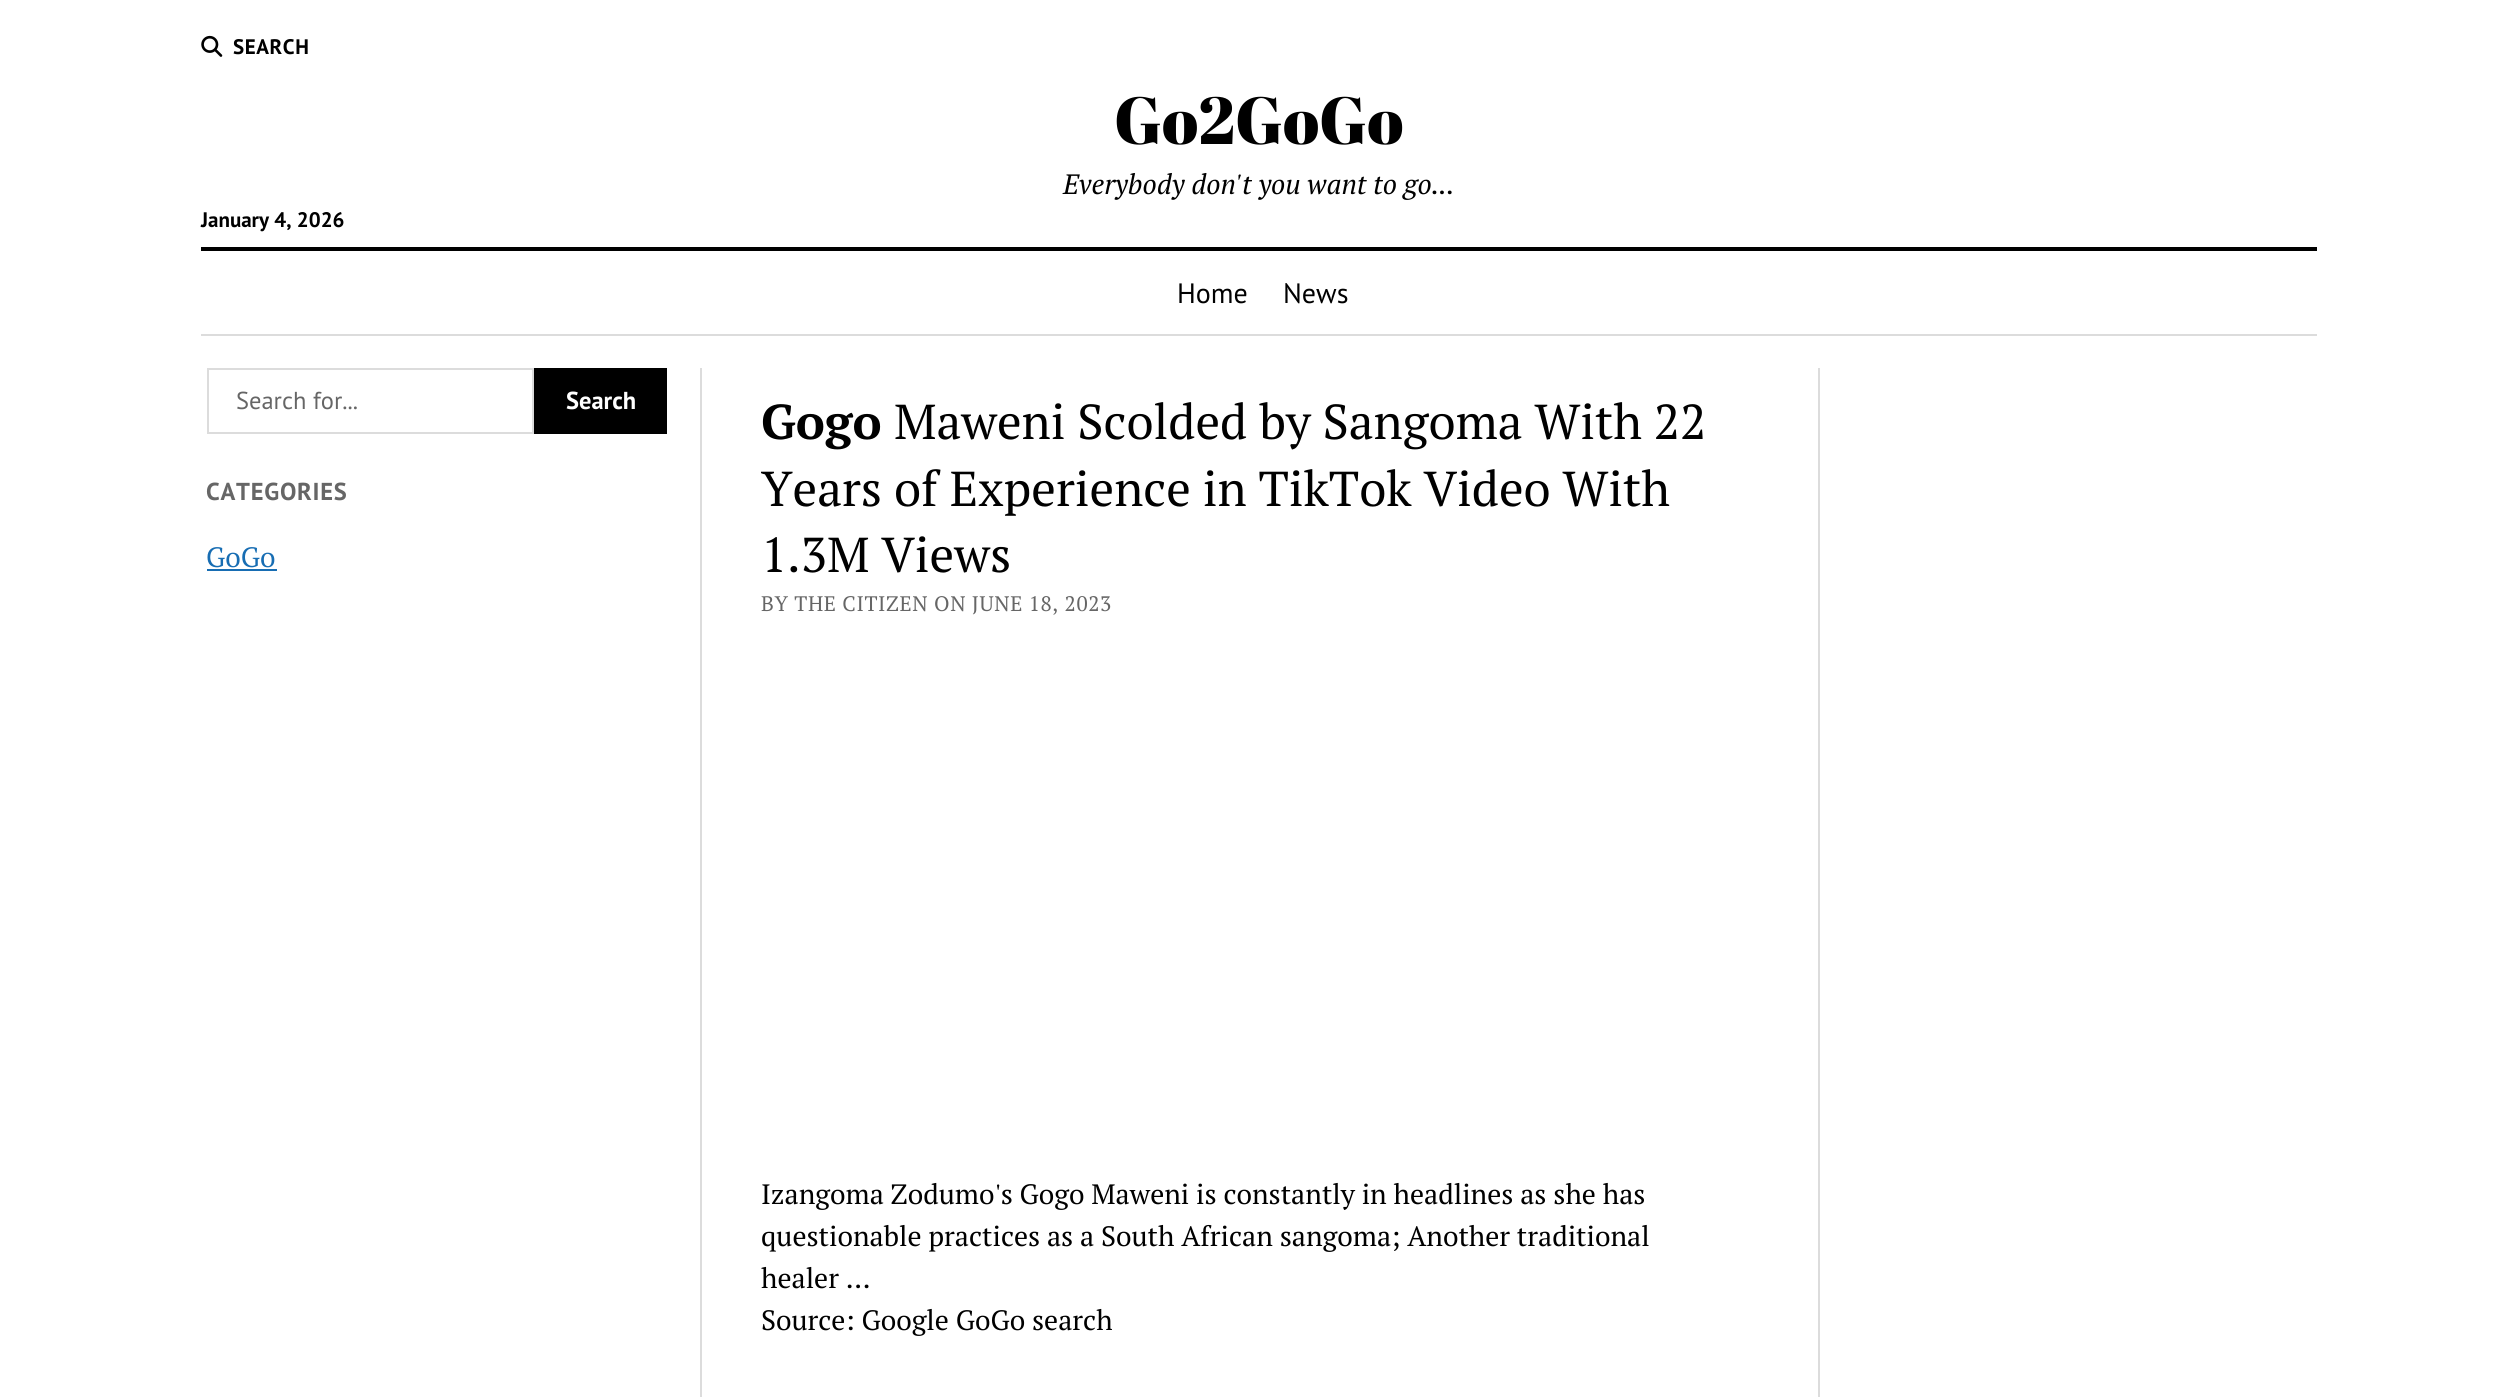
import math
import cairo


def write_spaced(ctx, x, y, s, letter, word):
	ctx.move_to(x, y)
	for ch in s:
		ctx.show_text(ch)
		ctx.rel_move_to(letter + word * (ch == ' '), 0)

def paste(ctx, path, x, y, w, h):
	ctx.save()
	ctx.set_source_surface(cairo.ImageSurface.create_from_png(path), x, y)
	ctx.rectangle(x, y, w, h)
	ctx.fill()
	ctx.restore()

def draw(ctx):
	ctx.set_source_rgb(1, 1, 1)
	ctx.paint()
	paste(ctx, 'media/1.png', 201, 35, 22, 22)
	ctx.select_font_face('PT Sans', cairo.FONT_SLANT_NORMAL, cairo.FONT_WEIGHT_BOLD)
	ctx.set_font_size(21)
	ctx.set_source_rgb(0, 0, 0)
	write_spaced(ctx, 233, 54, 'SEARCH', 0.6, 0)
	ctx.select_font_face('Abril Fatface')
	ctx.set_font_size(66.5)
	ctx.move_to(1114, 144)
	ctx.show_text('Go2GoGo')
	ctx.select_font_face('PT Serif', cairo.FONT_SLANT_ITALIC)
	ctx.set_font_size(28)
	ctx.move_to(1063, 194)
	ctx.show_text('Everybody don\'t you want to go...')
	ctx.select_font_face('PT Sans', cairo.FONT_SLANT_NORMAL, cairo.FONT_WEIGHT_BOLD)
	ctx.set_font_size(21)
	ctx.move_to(201, 227)
	ctx.show_text('January 4, 2026')
	ctx.rectangle(201, 247, 2116, 4)
	ctx.fill()
	ctx.set_source_rgb(0.863, 0.863, 0.863)
	ctx.rectangle(201, 334, 2116, 2)
	ctx.fill()
	ctx.select_font_face('PT Sans')
	ctx.set_font_size(28)
	ctx.set_source_rgb(0, 0, 0)
	ctx.move_to(1177, 303)
	ctx.show_text('Home')
	ctx.move_to(1283, 303)
	ctx.show_text('News')
	ctx.set_source_rgb(0.863, 0.863, 0.863)
	ctx.rectangle(700, 368, 2, 1029)
	ctx.fill()
	ctx.rectangle(1818, 368, 2, 1029)
	ctx.fill()
	ctx.rectangle(208, 369, 325, 64)
	ctx.stroke()
	ctx.set_font_size(24.5)
	ctx.set_source_rgb(0.4, 0.4, 0.4)
	ctx.move_to(236, 409)
	ctx.show_text('Search for...')
	ctx.set_source_rgb(0, 0, 0)
	ctx.rectangle(534, 368, 133, 66)
	ctx.fill()
	ctx.select_font_face('PT Sans', cairo.FONT_SLANT_NORMAL, cairo.FONT_WEIGHT_BOLD)
	ctx.set_source_rgb(1, 1, 1)
	ctx.move_to(566, 409)
	ctx.show_text('Search')
	ctx.set_source_rgb(0.4, 0.4, 0.4)
	write_spaced(ctx, 206, 500, 'CATEGORIES', 0.75, 0)
	ctx.select_font_face('PT Serif')
	ctx.set_font_size(28)
	ctx.set_source_rgb(0.09, 0.427, 0.702)
	ctx.move_to(206, 567)
	ctx.show_text('GoGo')
	ctx.rectangle(207, 569, 70, 2)
	ctx.fill()
	ctx.select_font_face('PT Serif', cairo.FONT_SLANT_NORMAL, cairo.FONT_WEIGHT_BOLD)
	ctx.set_font_size(49)
	ctx.set_source_rgb(0, 0, 0)
	ctx.move_to(761, 439)
	ctx.show_text('Gogo')
	ctx.select_font_face('PT Serif')
	for x, y, s in [
		(894, 439, 'Maweni Scolded by Sangoma With 22'),
		(761, 506, 'Years of Experience in TikTok Video With'),
		(761, 572, '1.3M Views'),
	]:
		ctx.move_to(x, y)
		ctx.show_text(s)
	ctx.set_font_size(21)
	ctx.set_source_rgb(0.4, 0.4, 0.4)
	write_spaced(ctx, 761, 611, 'BY THE CITIZEN ON JUNE 18, 2023', 0.6, 0)
	ctx.set_font_size(28)
	ctx.set_source_rgb(0, 0, 0)
	for x, y, s in [
		(761, 1204, 'Izangoma Zodumo\'s Gogo Maweni is constantly in headlines as she has'),
		(761, 1246, 'questionable practices as a South African sangoma; Another traditional'),
		(761, 1288, 'healer …'),
		(761, 1330, 'Source: Google GoGo search'),
	]:
		ctx.move_to(x, y)
		ctx.show_text(s)


surface = cairo.ImageSurface(cairo.FORMAT_RGB24, 2518, 1397)
ctx = cairo.Context(surface)
options = cairo.FontOptions()
options.set_hint_metrics(cairo.HINT_METRICS_OFF)
options.set_hint_style(cairo.HINT_STYLE_NONE)
ctx.set_font_options(options)
ctx.set_miter_limit(4)
draw(ctx)
surface.write_to_png('image.png')
